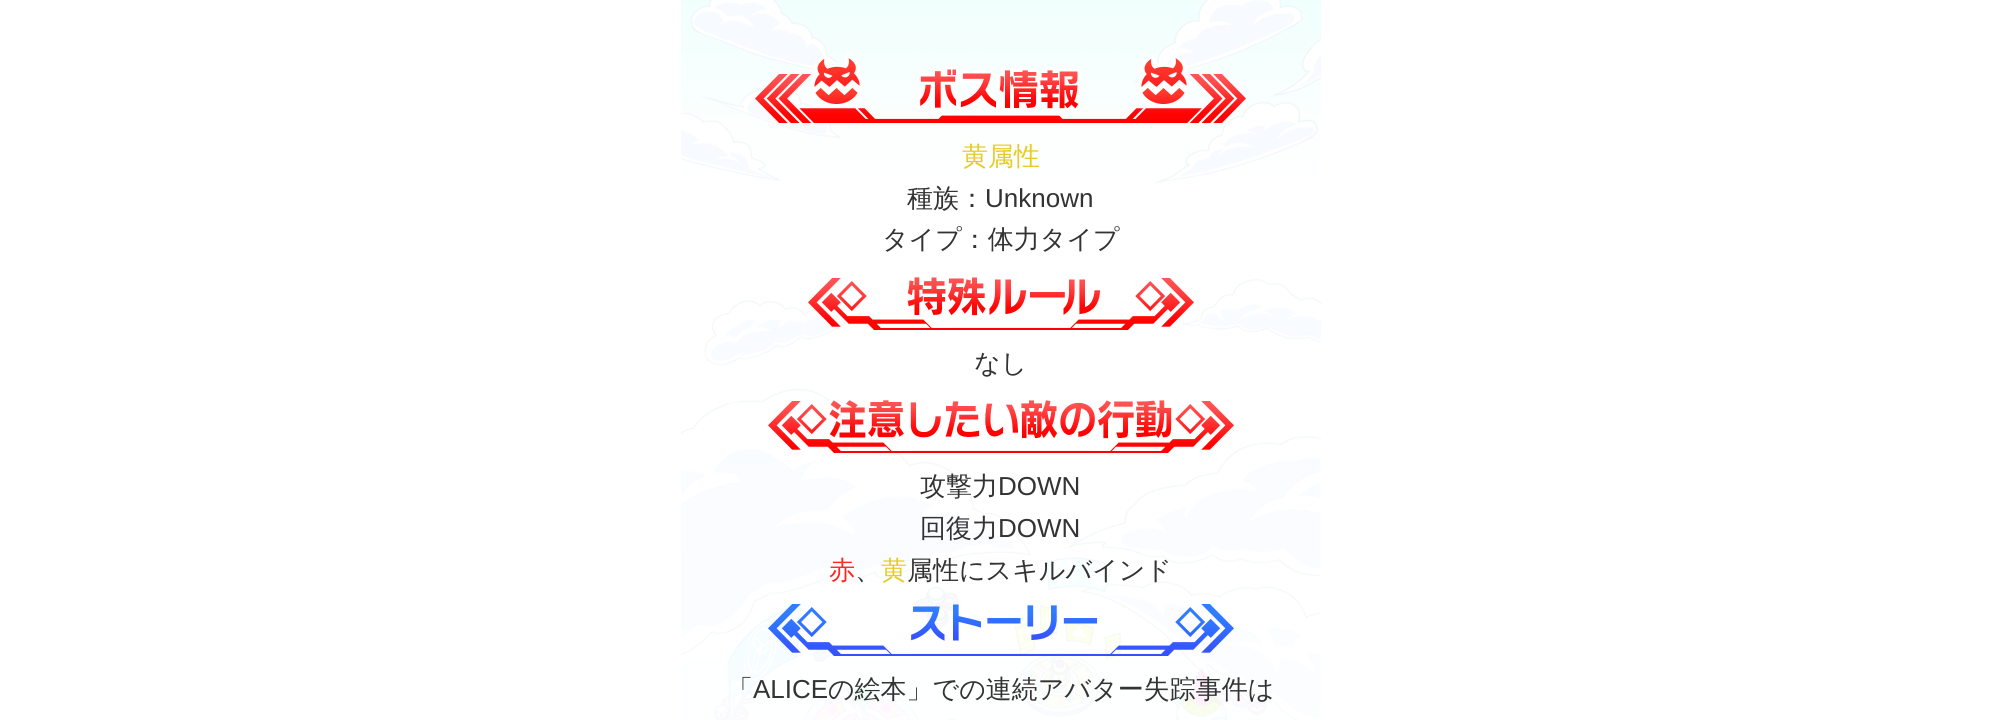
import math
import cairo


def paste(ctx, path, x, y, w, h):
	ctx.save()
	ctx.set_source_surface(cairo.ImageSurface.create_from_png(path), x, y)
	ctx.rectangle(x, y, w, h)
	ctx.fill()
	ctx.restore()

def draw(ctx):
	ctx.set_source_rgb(1, 1, 1)
	ctx.paint()
	paste(ctx, 'media/1.png', 681, 0, 640, 720)
	paste(ctx, 'media/2.png', 755, 54, 491, 69)
	ctx.select_font_face('WenQuanYi Zen Hei Medium')
	ctx.set_font_size(26)
	ctx.set_source_rgb(0.902, 0.796, 0.149)
	ctx.move_to(962, 165)
	ctx.show_text('黄属性')
	ctx.set_source_rgb(0.2, 0.2, 0.2)
	ctx.move_to(907, 207)
	ctx.show_text('種族：')
	ctx.select_font_face('Liberation Sans')
	ctx.move_to(985, 207)
	ctx.show_text('Unknown')
	ctx.select_font_face('WenQuanYi Zen Hei Medium')
	ctx.move_to(882, 248)
	ctx.show_text('タイプ：体力タイプ')
	paste(ctx, 'media/3.png', 808, 277, 386, 53)
	ctx.move_to(974, 372)
	ctx.show_text('なし')
	paste(ctx, 'media/4.png', 768, 400, 466, 53)
	ctx.move_to(920, 495)
	ctx.show_text('攻撃力')
	ctx.select_font_face('Liberation Sans')
	ctx.move_to(998, 495)
	ctx.show_text('DOWN')
	ctx.select_font_face('WenQuanYi Zen Hei Medium')
	ctx.move_to(920, 537)
	ctx.show_text('回復力')
	ctx.select_font_face('Liberation Sans')
	ctx.move_to(998, 537)
	ctx.show_text('DOWN')
	ctx.select_font_face('WenQuanYi Zen Hei Medium')
	ctx.set_source_rgb(1, 0.149, 0.149)
	ctx.move_to(829, 579)
	ctx.show_text('赤')
	ctx.set_source_rgb(0.2, 0.2, 0.2)
	ctx.move_to(855, 579)
	ctx.show_text('、')
	ctx.set_source_rgb(0.902, 0.796, 0.149)
	ctx.move_to(881, 579)
	ctx.show_text('黄')
	ctx.set_source_rgb(0.2, 0.2, 0.2)
	ctx.move_to(907, 579)
	ctx.show_text('属性にスキルバインド')
	paste(ctx, 'media/5.png', 768, 604, 466, 52)
	ctx.move_to(727, 698)
	ctx.show_text('「')
	ctx.select_font_face('Liberation Sans')
	ctx.move_to(753, 698)
	ctx.show_text('ALICE')
	ctx.select_font_face('WenQuanYi Zen Hei Medium')
	ctx.move_to(828, 698)
	ctx.show_text('の絵本」での連続アバター失踪事件は')


surface = cairo.ImageSurface(cairo.FORMAT_RGB24, 2001, 720)
ctx = cairo.Context(surface)
options = cairo.FontOptions()
options.set_hint_metrics(cairo.HINT_METRICS_OFF)
options.set_hint_style(cairo.HINT_STYLE_NONE)
ctx.set_font_options(options)
ctx.set_miter_limit(4)
draw(ctx)
surface.write_to_png('image.png')
